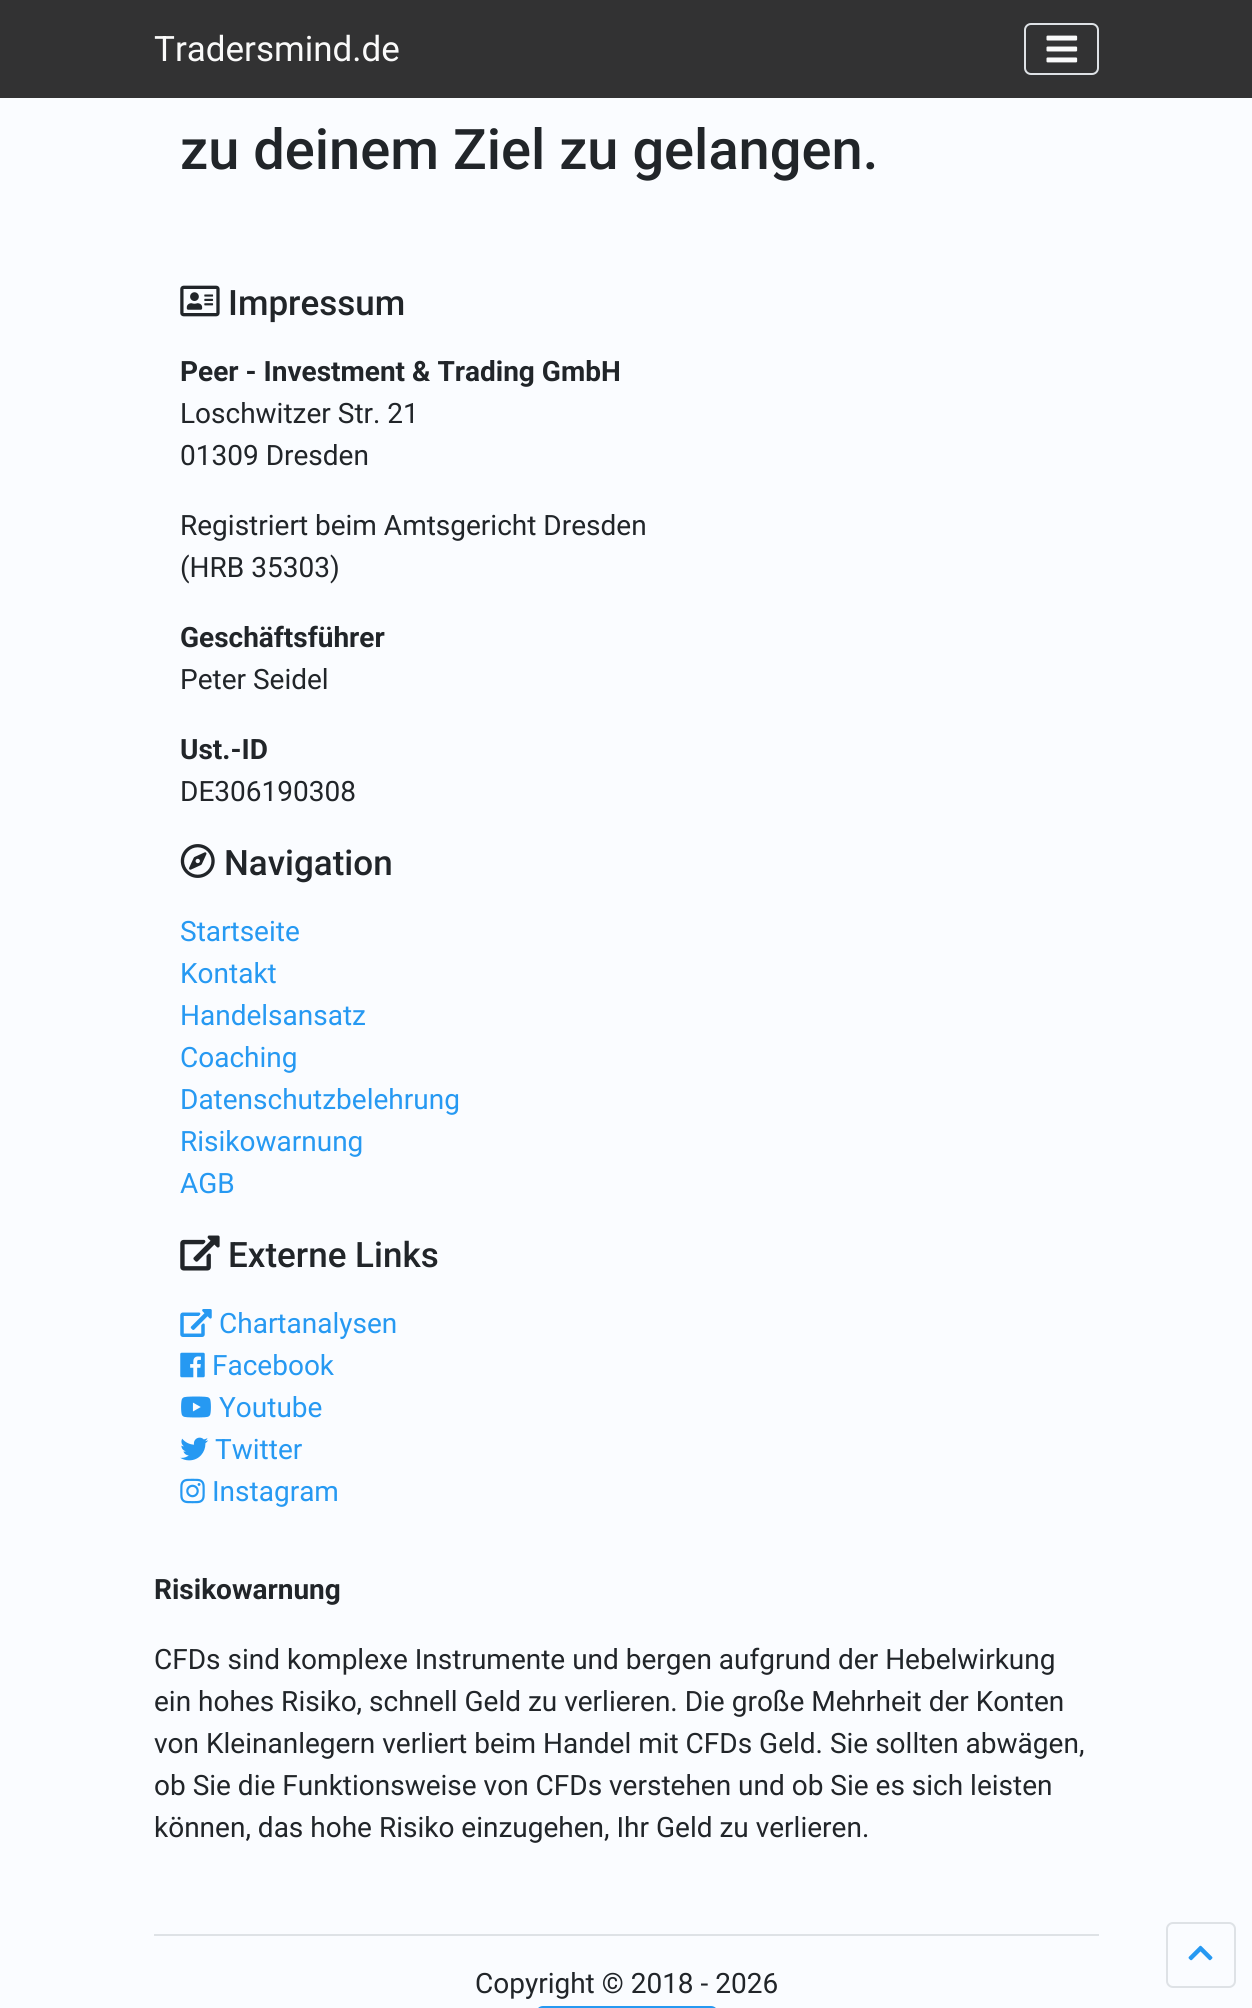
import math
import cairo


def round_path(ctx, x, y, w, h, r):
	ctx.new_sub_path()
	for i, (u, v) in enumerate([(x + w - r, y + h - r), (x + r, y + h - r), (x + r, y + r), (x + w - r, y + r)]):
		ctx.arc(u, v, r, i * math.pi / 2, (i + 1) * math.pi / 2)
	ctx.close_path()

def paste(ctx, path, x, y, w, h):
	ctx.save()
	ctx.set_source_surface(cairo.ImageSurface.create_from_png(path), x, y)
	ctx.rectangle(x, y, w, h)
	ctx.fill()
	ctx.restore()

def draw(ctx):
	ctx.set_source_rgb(0.98, 0.988, 1)
	ctx.paint()
	ctx.set_source_rgba(0, 0, 0, 0.8)
	ctx.rectangle(0, 0, 1252, 98)
	ctx.fill()
	ctx.select_font_face('Roboto')
	ctx.set_font_size(35)
	ctx.set_source_rgb(0.98, 0.98, 0.98)
	ctx.move_to(154, 61)
	ctx.show_text('Tradersmind.de')
	round_path(ctx, 1025, 24, 73, 50, 6)
	ctx.set_source_rgb(0.871, 0.886, 0.902)
	ctx.stroke()
	paste(ctx, 'media/1.png', 1046, 35, 32, 28)
	ctx.select_font_face('Roboto Medium')
	ctx.set_font_size(56)
	ctx.set_source_rgb(0.129, 0.145, 0.161)
	ctx.move_to(180, 169)
	ctx.show_text('zu deinem Ziel zu gelangen.')
	paste(ctx, 'media/2.png', 180, 285, 40, 32)
	ctx.set_font_size(35)
	ctx.move_to(228, 315)
	ctx.show_text('Impressum')
	ctx.select_font_face('Roboto', cairo.FONT_SLANT_NORMAL, cairo.FONT_WEIGHT_BOLD)
	ctx.set_font_size(28)
	ctx.move_to(180, 381)
	ctx.show_text('Peer - Investment & Trading GmbH')
	ctx.select_font_face('Roboto')
	for x, y, s in [
		(180, 423, 'Loschwitzer Str. 21'),
		(180, 465, '01309 Dresden'),
		(180, 535, 'Registriert beim Amtsgericht Dresden'),
		(180, 577, '(HRB 35303)'),
	]:
		ctx.move_to(x, y)
		ctx.show_text(s)
	ctx.select_font_face('Roboto', cairo.FONT_SLANT_NORMAL, cairo.FONT_WEIGHT_BOLD)
	ctx.move_to(180, 647)
	ctx.show_text('Geschäftsführer')
	ctx.select_font_face('Roboto')
	ctx.move_to(180, 689)
	ctx.show_text('Peter Seidel')
	ctx.select_font_face('Roboto', cairo.FONT_SLANT_NORMAL, cairo.FONT_WEIGHT_BOLD)
	ctx.move_to(180, 759)
	ctx.show_text('Ust.-ID')
	ctx.select_font_face('Roboto')
	ctx.move_to(180, 801)
	ctx.show_text('DE306190308')
	paste(ctx, 'media/3.png', 180, 844, 35, 34)
	ctx.select_font_face('Roboto Medium')
	ctx.set_font_size(35)
	ctx.move_to(224, 875)
	ctx.show_text('Navigation')
	ctx.select_font_face('Roboto')
	ctx.set_font_size(28)
	ctx.set_source_rgb(0.149, 0.6, 0.949)
	for x, y, s in [
		(180, 941, 'Startseite'),
		(180, 983, 'Kontakt'),
		(180, 1025, 'Handelsansatz'),
		(180, 1067, 'Coaching'),
		(180, 1109, 'Datenschutzbelehrung'),
		(180, 1151, 'Risikowarnung'),
		(180, 1193, 'AGB'),
	]:
		ctx.move_to(x, y)
		ctx.show_text(s)
	paste(ctx, 'media/4.png', 180, 1235, 40, 36)
	ctx.select_font_face('Roboto Medium')
	ctx.set_font_size(35)
	ctx.set_source_rgb(0.129, 0.145, 0.161)
	ctx.move_to(228, 1267)
	ctx.show_text('Externe Links')
	paste(ctx, 'media/5.png', 180, 1309, 32, 28)
	ctx.select_font_face('Roboto')
	ctx.set_font_size(28)
	ctx.set_source_rgb(0.149, 0.6, 0.949)
	ctx.move_to(219, 1333)
	ctx.show_text('Chartanalysen')
	paste(ctx, 'media/6.png', 180, 1352, 25, 26)
	ctx.move_to(212, 1375)
	ctx.show_text('Facebook')
	paste(ctx, 'media/7.png', 181, 1396, 30, 22)
	ctx.move_to(219, 1417)
	ctx.show_text('Youtube')
	paste(ctx, 'media/8.png', 180, 1437, 29, 24)
	ctx.move_to(215, 1459)
	ctx.show_text('Twitter')
	paste(ctx, 'media/9.png', 180, 1478, 25, 26)
	ctx.move_to(212, 1501)
	ctx.show_text('Instagram')
	ctx.select_font_face('Roboto', cairo.FONT_SLANT_NORMAL, cairo.FONT_WEIGHT_BOLD)
	ctx.set_source_rgb(0.129, 0.145, 0.161)
	ctx.move_to(154, 1599)
	ctx.show_text('Risikowarnung')
	ctx.select_font_face('Roboto')
	for x, y, s in [
		(154, 1669, 'CFDs sind komplexe Instrumente und bergen aufgrund der Hebelwirkung'),
		(154, 1711, 'ein hohes Risiko, schnell Geld zu verlieren. Die große Mehrheit der Konten'),
		(154, 1753, 'von Kleinanlegern verliert beim Handel mit CFDs Geld. Sie sollten abwägen,'),
		(154, 1795, 'ob Sie die Funktionsweise von CFDs verstehen und ob Sie es sich leisten'),
		(154, 1837, 'können, das hohe Risiko einzugehen, Ihr Geld zu verlieren.'),
	]:
		ctx.move_to(x, y)
		ctx.show_text(s)
	ctx.set_source_rgb(0.871, 0.886, 0.902)
	ctx.rectangle(154, 1934, 945, 2)
	ctx.fill()
	ctx.set_source_rgb(0.129, 0.145, 0.161)
	ctx.move_to(475, 1993)
	ctx.show_text('Copyright © 2018 - 2026')
	round_path(ctx, 537, 2007, 180, 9, 6)
	ctx.set_source_rgb(0.149, 0.6, 0.949)
	ctx.stroke()
	round_path(ctx, 1167, 1923, 68, 64, 6)
	ctx.set_source_rgb(0.871, 0.886, 0.902)
	ctx.stroke()
	paste(ctx, 'media/10.png', 1188, 1945, 25, 16)


surface = cairo.ImageSurface(cairo.FORMAT_RGB24, 1252, 2008)
ctx = cairo.Context(surface)
options = cairo.FontOptions()
options.set_hint_metrics(cairo.HINT_METRICS_OFF)
options.set_hint_style(cairo.HINT_STYLE_NONE)
ctx.set_font_options(options)
ctx.set_miter_limit(4)
draw(ctx)
surface.write_to_png('image.png')
